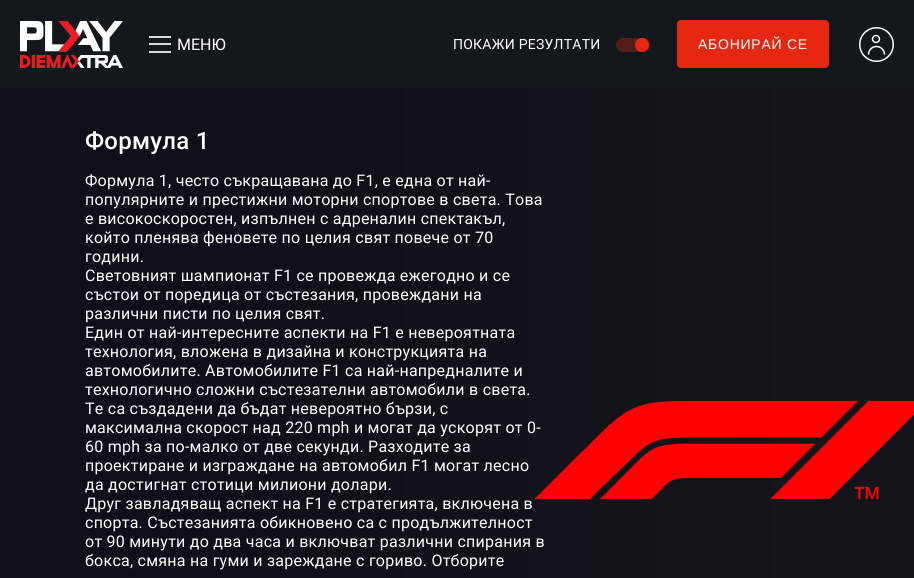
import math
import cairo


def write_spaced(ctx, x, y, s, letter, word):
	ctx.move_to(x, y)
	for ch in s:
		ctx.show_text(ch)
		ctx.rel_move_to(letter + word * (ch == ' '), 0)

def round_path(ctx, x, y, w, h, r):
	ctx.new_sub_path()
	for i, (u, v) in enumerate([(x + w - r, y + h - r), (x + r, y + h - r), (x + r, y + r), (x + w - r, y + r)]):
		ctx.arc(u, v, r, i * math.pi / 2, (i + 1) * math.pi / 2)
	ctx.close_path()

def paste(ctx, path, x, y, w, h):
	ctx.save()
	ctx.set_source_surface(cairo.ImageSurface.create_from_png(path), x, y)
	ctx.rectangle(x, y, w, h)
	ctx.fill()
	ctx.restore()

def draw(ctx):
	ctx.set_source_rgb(0.078, 0.094, 0.11)
	ctx.paint()
	paste(ctx, 'media/1.png', 20, 21, 103, 47)
	ctx.set_source_rgb(0.855, 0.855, 0.855)
	ctx.rectangle(149, 36, 22, 2)
	ctx.rectangle(149, 43, 22, 2)
	ctx.rectangle(149, 51, 22, 2)
	ctx.fill()
	ctx.select_font_face('Roboto')
	ctx.set_font_size(16)
	ctx.set_source_rgb(1, 1, 1)
	ctx.move_to(177, 50)
	ctx.show_text('МЕНЮ')
	ctx.set_font_size(14)
	write_spaced(ctx, 453, 49, 'ПОКАЖИ РЕЗУЛТАТИ', 0.25, 0)
	ctx.set_source_rgb(0.325, 0.114, 0.102)
	round_path(ctx, 616, 38, 34, 14, 7)
	ctx.fill()
	ctx.set_source_rgb(0.902, 0.157, 0.075)
	ctx.arc(642, 45, 7, 0, 2 * math.pi)
	ctx.fill()
	round_path(ctx, 677, 20, 152, 48, 4)
	ctx.fill()
	ctx.select_font_face('Liberation Sans')
	ctx.set_source_rgb(1, 1, 1)
	write_spaced(ctx, 698, 49, 'АБОНИРАЙ СЕ', 0.75, 0)
	paste(ctx, 'media/2.png', 859, 27, 35, 35)
	gradient = cairo.LinearGradient(914, 450, 0, 450)
	gradient.add_color_stop_rgba(0.1, 0.071, 0.082, 0.098, 1)
	gradient.add_color_stop_rgba(0.75, 0.055, 0.063, 0.098, 1)
	ctx.set_source(gradient)
	ctx.rectangle(0, 88, 914, 490)
	ctx.fill()
	ctx.select_font_face('Roboto Medium')
	ctx.set_font_size(24)
	ctx.set_source_rgb(1, 1, 1)
	write_spaced(ctx, 85, 149, 'Формула 1', 0.25, 0)
	ctx.select_font_face('Roboto')
	ctx.set_font_size(16)
	for x, y, s in [
		(85, 186, 'Формула 1, често съкращавана до F1, е една от най-'),
		(85, 205, 'популярните и престижни моторни спортове в света. Това'),
		(85, 224, 'е високоскоростен, изпълнен с адреналин спектакъл,'),
		(85, 243, 'който пленява феновете по целия свят повече от 70'),
		(85, 262, 'години.'),
		(85, 281, 'Световният шампионат F1 се провежда ежегодно и се'),
		(85, 300, 'състои от поредица от състезания, провеждани на'),
		(85, 319, 'различни писти по целия свят.'),
		(85, 338, 'Един от най-интересните аспекти на F1 е невероятната'),
		(85, 357, 'технология, вложена в дизайна и конструкцията на'),
		(85, 376, 'автомобилите. Автомобилите F1 са най-напредналите и'),
		(85, 395, 'технологично сложни състезателни автомобили в света.'),
		(85, 414, 'Те са създадени да бъдат невероятно бързи, с'),
		(85, 433, 'максимална скорост над 220 mph и могат да ускорят от 0-'),
		(85, 452, '60 mph за по-малко от две секунди. Разходите за'),
		(85, 471, 'проектиране и изграждане на автомобил F1 могат лесно'),
		(85, 490, 'да достигнат стотици милиони долари.'),
		(85, 509, 'Друг завладяващ аспект на F1 е стратегията, включена в'),
		(85, 528, 'спорта. Състезанията обикновено са с продължителност'),
		(85, 547, 'от 90 минути до два часа и включват различни спирания в'),
		(85, 566, 'бокса, смяна на гуми и зареждане с гориво. Отборите'),
	]:
		write_spaced(ctx, x, y, s, 0.25, 0)
	paste(ctx, 'media/3.png', 534, 400, 380, 100)


surface = cairo.ImageSurface(cairo.FORMAT_RGB24, 914, 578)
ctx = cairo.Context(surface)
options = cairo.FontOptions()
options.set_hint_metrics(cairo.HINT_METRICS_OFF)
options.set_hint_style(cairo.HINT_STYLE_NONE)
ctx.set_font_options(options)
ctx.set_miter_limit(4)
draw(ctx)
surface.write_to_png('image.png')
